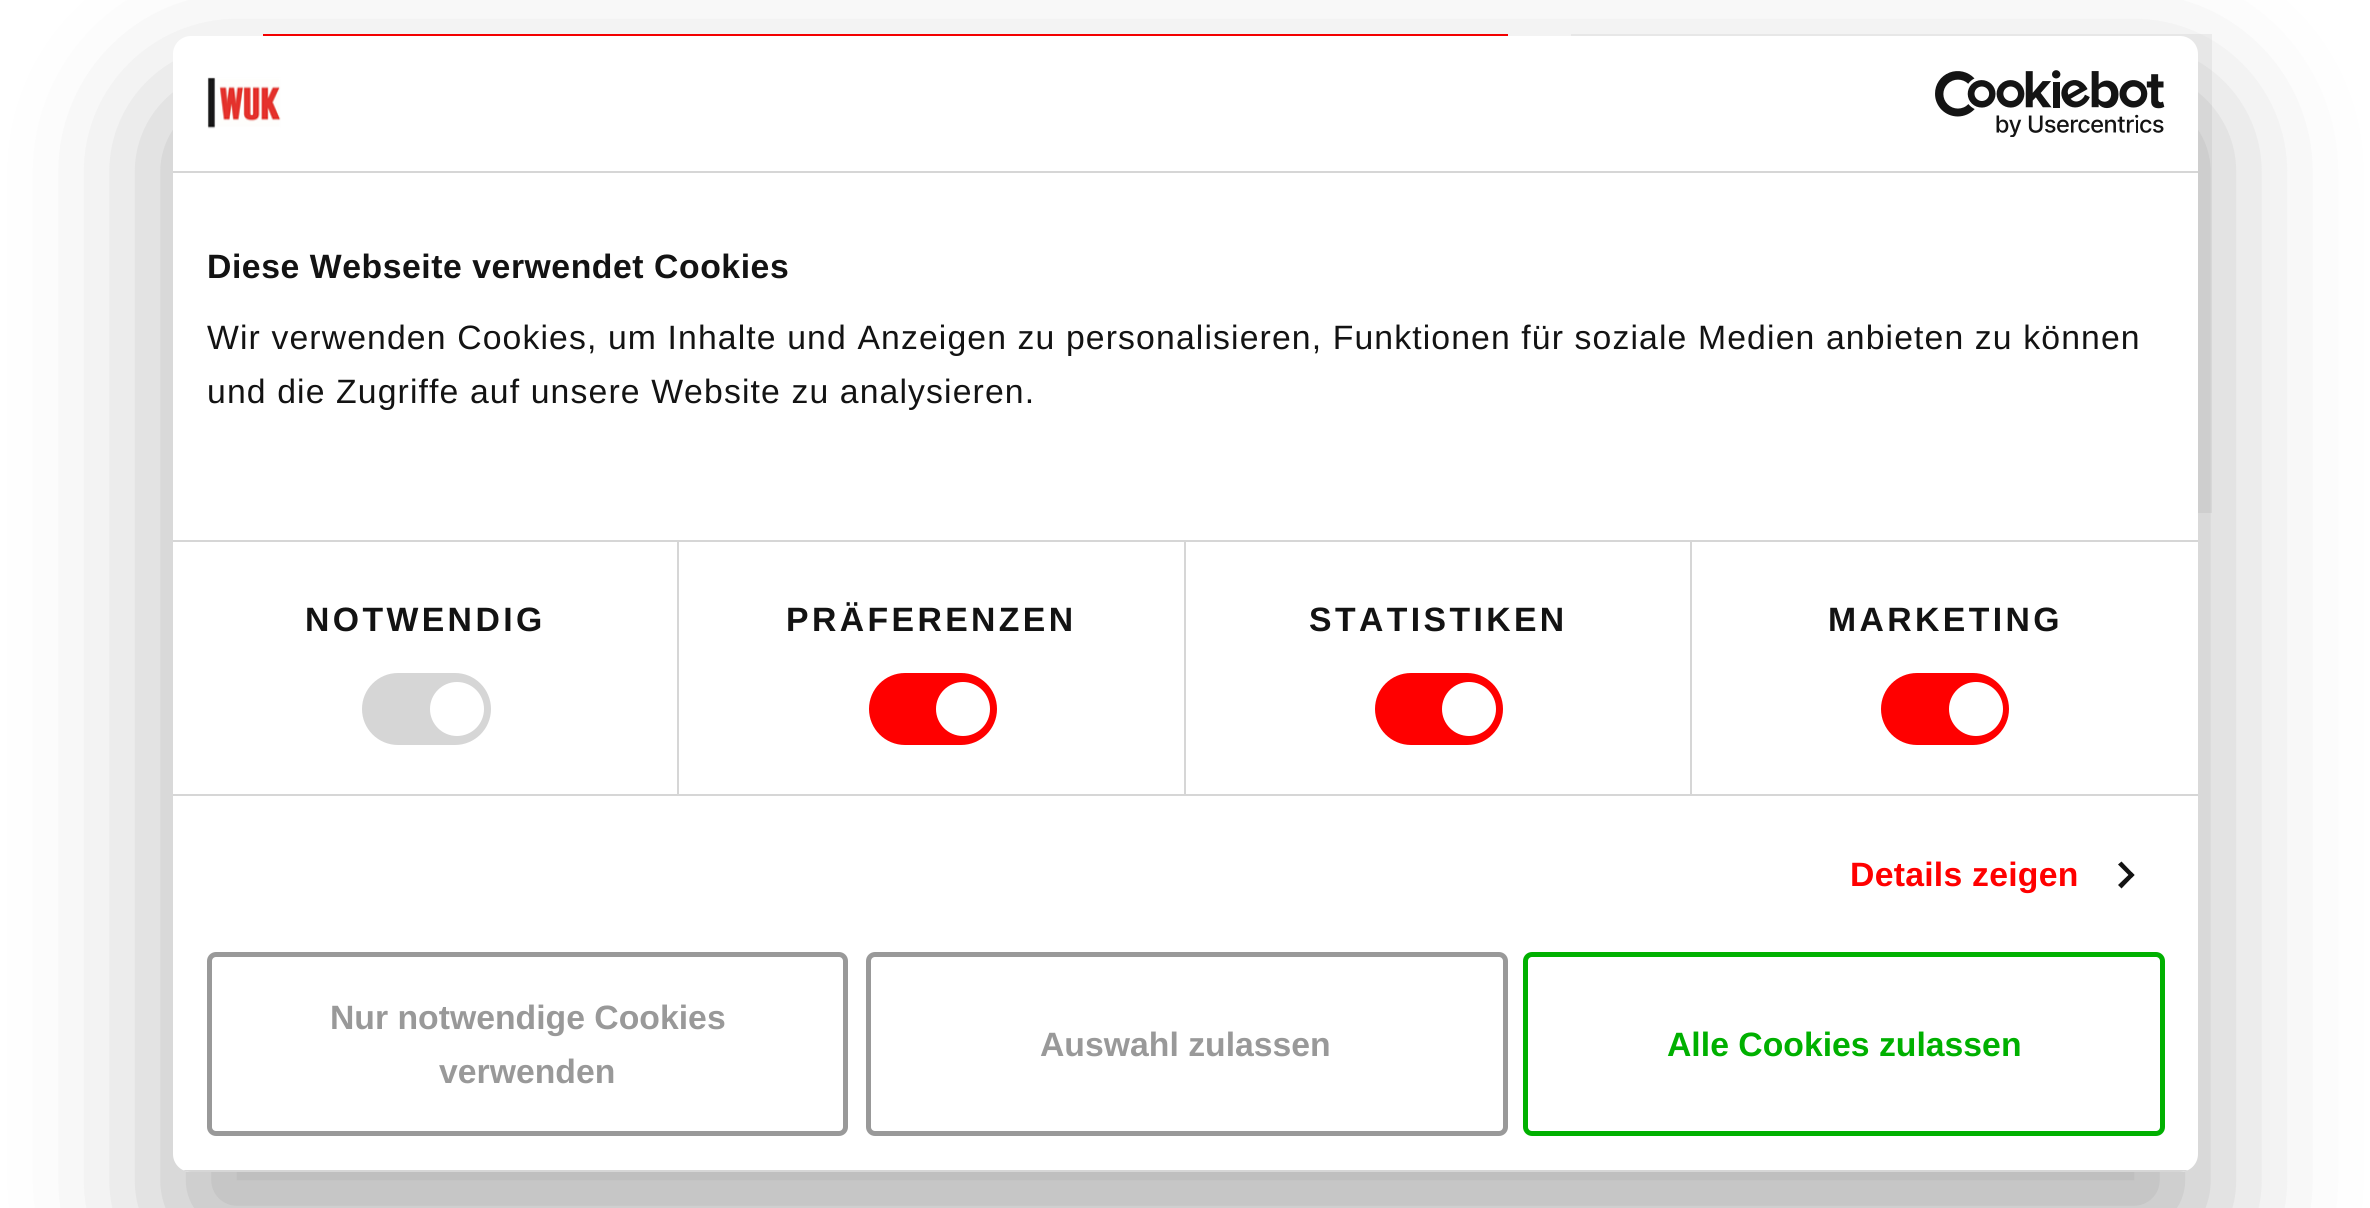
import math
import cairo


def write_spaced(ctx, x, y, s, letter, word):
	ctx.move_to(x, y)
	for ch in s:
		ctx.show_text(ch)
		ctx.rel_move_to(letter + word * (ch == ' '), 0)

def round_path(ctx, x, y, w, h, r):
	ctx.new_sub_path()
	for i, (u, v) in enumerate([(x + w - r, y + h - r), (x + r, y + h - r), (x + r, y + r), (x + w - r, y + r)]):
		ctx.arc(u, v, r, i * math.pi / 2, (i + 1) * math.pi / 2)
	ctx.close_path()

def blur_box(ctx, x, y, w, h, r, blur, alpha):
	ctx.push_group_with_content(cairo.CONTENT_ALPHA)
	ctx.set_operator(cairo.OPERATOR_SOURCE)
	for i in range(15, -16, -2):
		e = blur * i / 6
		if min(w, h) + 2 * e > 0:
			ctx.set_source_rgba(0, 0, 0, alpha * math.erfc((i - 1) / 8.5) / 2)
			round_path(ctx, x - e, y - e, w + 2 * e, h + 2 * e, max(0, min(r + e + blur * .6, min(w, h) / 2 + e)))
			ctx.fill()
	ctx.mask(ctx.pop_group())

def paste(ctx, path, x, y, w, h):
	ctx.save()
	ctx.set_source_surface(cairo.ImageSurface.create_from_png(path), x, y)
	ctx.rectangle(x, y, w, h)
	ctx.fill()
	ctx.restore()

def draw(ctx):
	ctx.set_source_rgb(1, 1, 1)
	ctx.paint()
	paste(ctx, 'media/1.png', 263, 34, 1245, 2)
	ctx.set_source_rgb(0.949, 0.949, 0.949)
	ctx.rectangle(1571, 34, 641, 479)
	ctx.fill()
	ctx.set_source_rgb(0, 0, 0)
	blur_box(ctx, 173, 108, 2025, 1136, 18, 76.5, 0.3)
	ctx.set_source_rgb(1, 1, 1)
	round_path(ctx, 173, 36, 2025, 1136, 18)
	ctx.fill()
	ctx.set_source_rgb(0.839, 0.839, 0.839)
	ctx.rectangle(173, 171, 2025, 2)
	ctx.fill()
	paste(ctx, 'media/2.png', 207, 77, 74, 52)
	paste(ctx, 'media/3.png', 1935, 70, 230, 67)
	ctx.rectangle(173, 540, 2025, 2)
	ctx.fill()
	ctx.select_font_face('Liberation Sans', cairo.FONT_SLANT_NORMAL, cairo.FONT_WEIGHT_BOLD)
	ctx.set_font_size(33.75)
	ctx.set_source_rgb(0.078, 0.078, 0.078)
	write_spaced(ctx, 207, 278, 'Diese Webseite verwendet Cookies', 0.55, 0)
	ctx.select_font_face('Liberation Sans')
	write_spaced(ctx, 207, 349, 'Wir verwenden Cookies, um Inhalte und Anzeigen zu personalisieren, Funktionen für soziale Medien anbieten zu können', 1.12, 0)
	write_spaced(ctx, 207, 403, 'und die Zugriffe auf unsere Website zu analysieren.', 1.12, 0)
	ctx.set_source_rgb(0.839, 0.839, 0.839)
	ctx.rectangle(173, 794, 2025, 2)
	ctx.fill()
	ctx.rectangle(677, 542, 2, 252)
	ctx.fill()
	ctx.select_font_face('Liberation Sans', cairo.FONT_SLANT_NORMAL, cairo.FONT_WEIGHT_BOLD)
	ctx.set_source_rgb(0.078, 0.078, 0.078)
	write_spaced(ctx, 305, 631, 'NOTWENDIG', 3.4, 0)
	ctx.set_source_rgb(0.839, 0.839, 0.839)
	round_path(ctx, 362, 673, 129, 72, 36)
	ctx.fill()
	ctx.set_source_rgb(1, 1, 1)
	ctx.arc(457, 709, 27, 0, 2 * math.pi)
	ctx.fill()
	ctx.set_source_rgb(0.839, 0.839, 0.839)
	ctx.rectangle(1184, 542, 2, 252)
	ctx.fill()
	ctx.set_source_rgb(0.078, 0.078, 0.078)
	write_spaced(ctx, 786, 631, 'PRÄFERENZEN', 3.4, 0)
	ctx.set_source_rgb(1, 0, 0)
	round_path(ctx, 869, 673, 128, 72, 36)
	ctx.fill()
	ctx.set_source_rgb(1, 1, 1)
	ctx.arc(963, 709, 27, 0, 2 * math.pi)
	ctx.fill()
	ctx.set_source_rgb(0.839, 0.839, 0.839)
	ctx.rectangle(1690, 542, 2, 252)
	ctx.fill()
	ctx.set_source_rgb(0.078, 0.078, 0.078)
	write_spaced(ctx, 1309, 631, 'STATISTIKEN', 3.4, 0)
	ctx.set_source_rgb(1, 0, 0)
	round_path(ctx, 1375, 673, 128, 72, 36)
	ctx.fill()
	ctx.set_source_rgb(1, 1, 1)
	ctx.arc(1469, 709, 27, 0, 2 * math.pi)
	ctx.fill()
	ctx.set_source_rgb(0.078, 0.078, 0.078)
	write_spaced(ctx, 1828, 631, 'MARKETING', 3.4, 0)
	ctx.set_source_rgb(1, 0, 0)
	round_path(ctx, 1881, 673, 128, 72, 36)
	ctx.fill()
	ctx.set_source_rgb(1, 1, 1)
	ctx.arc(1976, 709, 27, 0, 2 * math.pi)
	ctx.fill()
	ctx.set_source_rgb(1, 0, 0)
	write_spaced(ctx, 1850, 886, 'Details zeigen', 0.25, 0)
	ctx.set_source_rgb(0.078, 0.078, 0.078)
	ctx.new_path()
	ctx.move_to(2121.5, 861.5)
	ctx.line_to(2134.5, 875)
	ctx.line_to(2131.5, 878)
	ctx.line_to(2118, 864.5)
	ctx.close_path()
	ctx.fill()
	ctx.new_path()
	ctx.move_to(2131.5, 872)
	ctx.line_to(2134.5, 875)
	ctx.line_to(2121.5, 888.5)
	ctx.line_to(2118, 885)
	ctx.close_path()
	ctx.fill()
	ctx.save()
	round_path(ctx, 173, 36, 2025, 1136, 18)
	ctx.clip()
	ctx.set_source_rgb(0.839, 0.839, 0.839)
	ctx.rectangle(183, 1170, 2005, 2)
	ctx.fill()
	ctx.restore()
	round_path(ctx, 209.5, 954.5, 636, 179, 6.5)
	ctx.set_source_rgb(0.6, 0.6, 0.6)
	ctx.set_line_width(5)
	ctx.stroke()
	ctx.move_to(330, 1029)
	ctx.show_text('Nur notwendige Cookies')
	ctx.move_to(439, 1083)
	ctx.show_text('verwenden')
	round_path(ctx, 868.5, 954.5, 637, 179, 6.5)
	ctx.stroke()
	ctx.move_to(1040, 1056)
	ctx.show_text('Auswahl zulassen')
	round_path(ctx, 1525.5, 954.5, 637, 179, 6.5)
	ctx.set_source_rgb(0, 0.69, 0)
	ctx.stroke()
	ctx.move_to(1667, 1056)
	ctx.show_text('Alle Cookies zulassen')


surface = cairo.ImageSurface(cairo.FORMAT_RGB24, 2370, 1208)
ctx = cairo.Context(surface)
options = cairo.FontOptions()
options.set_hint_metrics(cairo.HINT_METRICS_OFF)
options.set_hint_style(cairo.HINT_STYLE_NONE)
ctx.set_font_options(options)
ctx.set_miter_limit(4)
draw(ctx)
surface.write_to_png('image.png')
